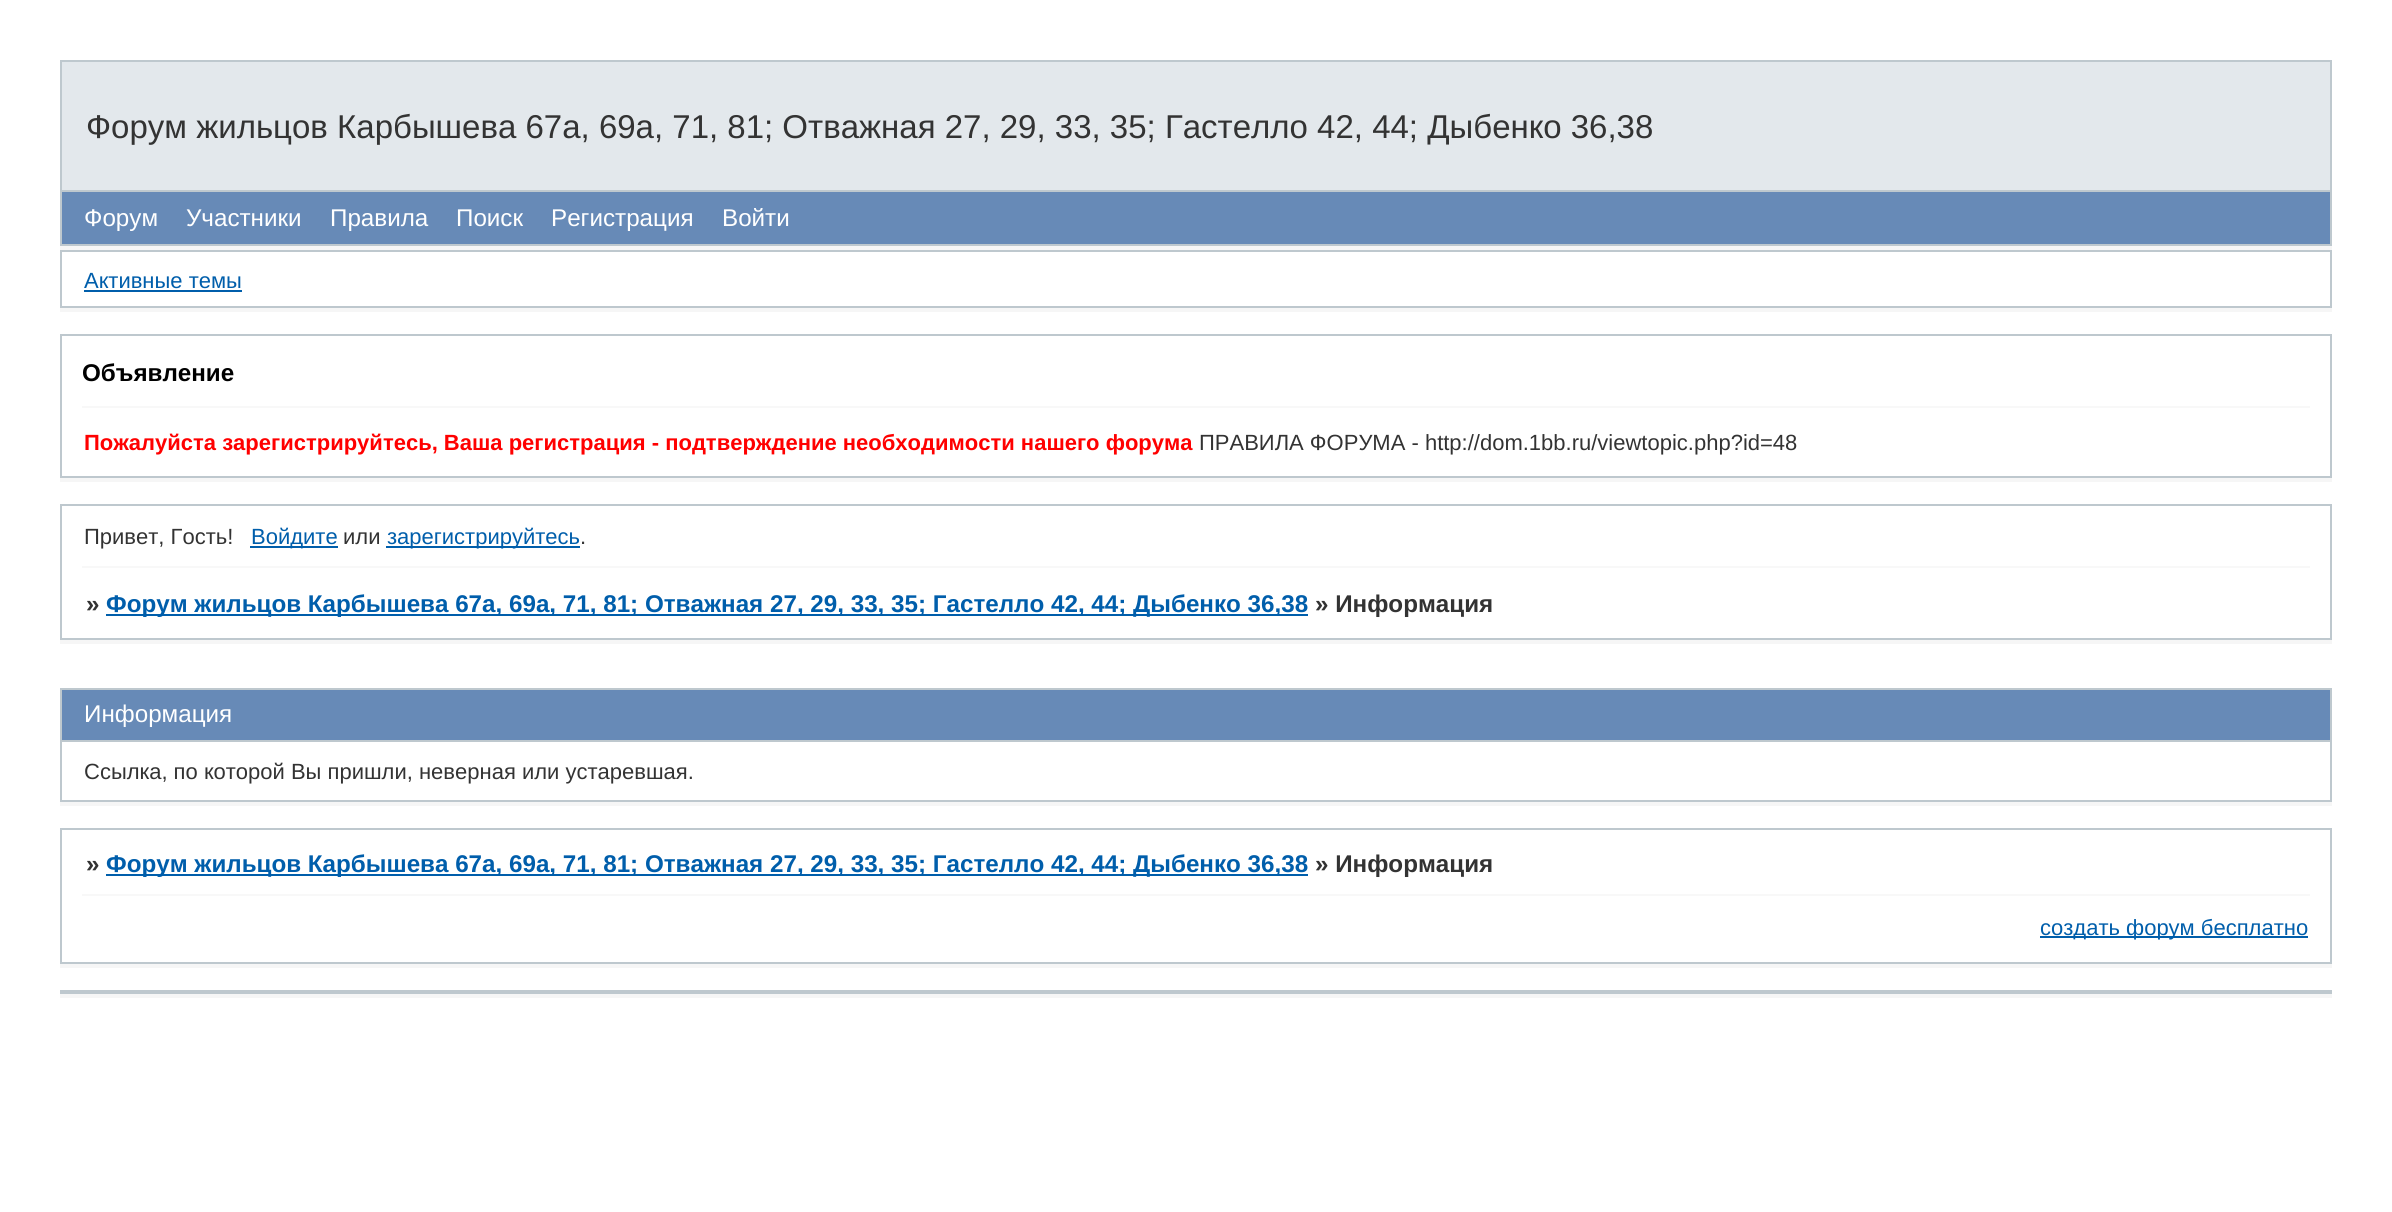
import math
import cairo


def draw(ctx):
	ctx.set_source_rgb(1, 1, 1)
	ctx.paint()
	ctx.set_source_rgb(0.89, 0.91, 0.922)
	ctx.rectangle(62, 62, 2268, 128)
	ctx.fill()
	ctx.set_source_rgb(0.745, 0.784, 0.808)
	ctx.rectangle(60, 60, 2272, 2)
	ctx.rectangle(2330, 60, 2, 130)
	ctx.rectangle(60, 60, 2, 130)
	ctx.fill()
	ctx.select_font_face('Liberation Sans')
	ctx.set_font_size(33)
	ctx.set_source_rgb(0.2, 0.2, 0.2)
	ctx.move_to(86, 138)
	ctx.show_text('Форум жильцов Карбышева 67а, 69а, 71, 81; Отважная 27, 29, 33, 35; Гастелло 42, 44; Дыбенко 36,38')
	ctx.set_source_rgb(0.961, 0.961, 0.961)
	ctx.rectangle(60, 246, 2272, 4)
	ctx.fill()
	ctx.set_source_rgb(0.404, 0.541, 0.718)
	ctx.rectangle(61, 191, 2270, 54)
	ctx.fill_preserve()
	ctx.set_source_rgb(0.745, 0.784, 0.808)
	ctx.stroke()
	ctx.set_font_size(24.2)
	ctx.set_source_rgb(1, 1, 1)
	for x, y, s in [
		(84, 226, 'Форум'),
		(186, 226, 'Участники'),
		(330, 226, 'Правила'),
		(456, 226, 'Поиск'),
		(551, 226, 'Регистрация'),
		(722, 226, 'Войти'),
	]:
		ctx.move_to(x, y)
		ctx.show_text(s)
	ctx.set_source_rgb(0.961, 0.961, 0.961)
	ctx.rectangle(60, 308, 2272, 4)
	ctx.fill()
	ctx.rectangle(61, 251, 2270, 56)
	ctx.set_source_rgb(0.745, 0.784, 0.808)
	ctx.stroke()
	ctx.set_font_size(22)
	ctx.set_source_rgb(0, 0.369, 0.671)
	ctx.move_to(84, 288)
	ctx.show_text('Активные темы')
	ctx.rectangle(84, 290, 158, 2)
	ctx.fill()
	ctx.set_source_rgb(0.961, 0.961, 0.961)
	ctx.rectangle(60, 478, 2272, 4)
	ctx.fill()
	ctx.rectangle(61, 335, 2270, 142)
	ctx.set_source_rgb(0.745, 0.784, 0.808)
	ctx.stroke()
	ctx.set_source_rgb(0.969, 0.969, 0.969)
	ctx.rectangle(82, 406, 2228, 2)
	ctx.fill()
	ctx.select_font_face('Liberation Sans', cairo.FONT_SLANT_NORMAL, cairo.FONT_WEIGHT_BOLD)
	ctx.set_font_size(24.2)
	ctx.set_source_rgb(0, 0, 0)
	ctx.move_to(82, 381)
	ctx.show_text('Объявление')
	ctx.set_font_size(22)
	ctx.set_source_rgb(1, 0, 0)
	ctx.move_to(84, 450)
	ctx.show_text('Пожалуйста зарегистрируйтесь, Ваша регистрация - подтверждение необходимости нашего форума')
	ctx.select_font_face('Liberation Sans')
	ctx.set_source_rgb(0.2, 0.2, 0.2)
	ctx.move_to(1199, 450)
	ctx.show_text('ПРАВИЛА ФОРУМА - http://dom.1bb.ru/viewtopic.php?id=48')
	ctx.set_source_rgb(0.745, 0.784, 0.808)
	ctx.rectangle(60, 504, 2272, 2)
	ctx.rectangle(2330, 504, 2, 136)
	ctx.rectangle(60, 504, 2, 66)
	ctx.fill()
	ctx.set_source_rgb(0.2, 0.2, 0.2)
	ctx.move_to(84, 544)
	ctx.show_text('Привет, Гость!')
	ctx.set_source_rgb(0, 0.369, 0.671)
	ctx.rectangle(250, 546, 88, 2)
	ctx.fill()
	ctx.move_to(251, 544)
	ctx.show_text('Войдите')
	ctx.set_source_rgb(0.2, 0.2, 0.2)
	ctx.move_to(343, 544)
	ctx.show_text('или')
	ctx.set_source_rgb(0, 0.369, 0.671)
	ctx.rectangle(386, 546, 194, 2)
	ctx.fill()
	ctx.move_to(387, 544)
	ctx.show_text('зарегистрируйтесь')
	ctx.set_source_rgb(0.2, 0.2, 0.2)
	ctx.move_to(580, 544)
	ctx.show_text('.')
	ctx.set_source_rgb(0.969, 0.969, 0.969)
	ctx.rectangle(82, 566, 2228, 2)
	ctx.fill()
	ctx.set_source_rgb(0.961, 0.961, 0.961)
	ctx.rectangle(60, 640, 2272, 4)
	ctx.fill()
	ctx.set_source_rgb(0.745, 0.784, 0.808)
	ctx.rectangle(60, 638, 2272, 2)
	ctx.rectangle(60, 566, 2, 74)
	ctx.fill()
	ctx.select_font_face('Liberation Sans', cairo.FONT_SLANT_NORMAL, cairo.FONT_WEIGHT_BOLD)
	ctx.set_font_size(24.2)
	ctx.set_source_rgb(0.2, 0.2, 0.2)
	ctx.move_to(86, 612)
	ctx.show_text('»')
	ctx.set_source_rgb(0, 0.369, 0.671)
	ctx.rectangle(106, 614, 1202, 2)
	ctx.fill()
	ctx.move_to(106, 612)
	ctx.show_text('Форум жильцов Карбышева 67а, 69а, 71, 81; Отважная 27, 29, 33, 35; Гастелло 42, 44; Дыбенко 36,38')
	ctx.set_source_rgb(0.2, 0.2, 0.2)
	ctx.move_to(1315, 612)
	ctx.show_text('» Информация')
	ctx.set_source_rgb(0.404, 0.541, 0.718)
	ctx.rectangle(62, 690, 2268, 50)
	ctx.fill()
	ctx.set_source_rgb(0.745, 0.784, 0.808)
	ctx.rectangle(60, 688, 2272, 2)
	ctx.rectangle(2330, 688, 2, 52)
	ctx.rectangle(60, 688, 2, 52)
	ctx.fill()
	ctx.select_font_face('Liberation Sans')
	ctx.set_source_rgb(1, 1, 1)
	ctx.move_to(84, 722)
	ctx.show_text('Информация')
	ctx.set_source_rgb(0.961, 0.961, 0.961)
	ctx.rectangle(60, 802, 2272, 4)
	ctx.fill()
	ctx.rectangle(61, 741, 2270, 60)
	ctx.set_source_rgb(0.745, 0.784, 0.808)
	ctx.stroke()
	ctx.set_font_size(22)
	ctx.set_source_rgb(0.2, 0.2, 0.2)
	ctx.move_to(84, 779)
	ctx.show_text('Ссылка, по которой Вы пришли, неверная или устаревшая.')
	ctx.set_source_rgb(0.745, 0.784, 0.808)
	ctx.rectangle(60, 828, 2272, 2)
	ctx.rectangle(2330, 894, 2, 70)
	ctx.rectangle(2330, 828, 2, 70)
	ctx.rectangle(60, 962, 2272, 2)
	ctx.rectangle(60, 894, 2, 70)
	ctx.rectangle(60, 828, 2, 70)
	ctx.fill()
	ctx.select_font_face('Liberation Sans', cairo.FONT_SLANT_NORMAL, cairo.FONT_WEIGHT_BOLD)
	ctx.set_font_size(24.2)
	ctx.set_source_rgb(0.2, 0.2, 0.2)
	ctx.move_to(86, 872)
	ctx.show_text('»')
	ctx.set_source_rgb(0, 0.369, 0.671)
	ctx.rectangle(106, 874, 1202, 2)
	ctx.fill()
	ctx.move_to(106, 872)
	ctx.show_text('Форум жильцов Карбышева 67а, 69а, 71, 81; Отважная 27, 29, 33, 35; Гастелло 42, 44; Дыбенко 36,38')
	ctx.set_source_rgb(0.2, 0.2, 0.2)
	ctx.move_to(1315, 872)
	ctx.show_text('» Информация')
	ctx.set_source_rgb(0.969, 0.969, 0.969)
	ctx.rectangle(82, 894, 2228, 2)
	ctx.fill()
	ctx.set_source_rgb(0.961, 0.961, 0.961)
	ctx.rectangle(60, 964, 2272, 4)
	ctx.fill()
	ctx.set_source_rgb(0, 0.369, 0.671)
	ctx.rectangle(2040, 936, 268, 2)
	ctx.fill()
	ctx.select_font_face('Liberation Sans')
	ctx.set_font_size(22)
	ctx.move_to(2040, 935)
	ctx.show_text('создать форум бесплатно')
	ctx.set_source_rgb(0.961, 0.961, 0.961)
	ctx.rectangle(60, 994, 2272, 4)
	ctx.fill()
	ctx.set_source_rgb(0.745, 0.784, 0.808)
	ctx.rectangle(60, 990, 2272, 4)
	ctx.fill()


surface = cairo.ImageSurface(cairo.FORMAT_RGB24, 2392, 1212)
ctx = cairo.Context(surface)
options = cairo.FontOptions()
options.set_hint_metrics(cairo.HINT_METRICS_OFF)
options.set_hint_style(cairo.HINT_STYLE_NONE)
ctx.set_font_options(options)
ctx.set_miter_limit(4)
draw(ctx)
surface.write_to_png('image.png')
